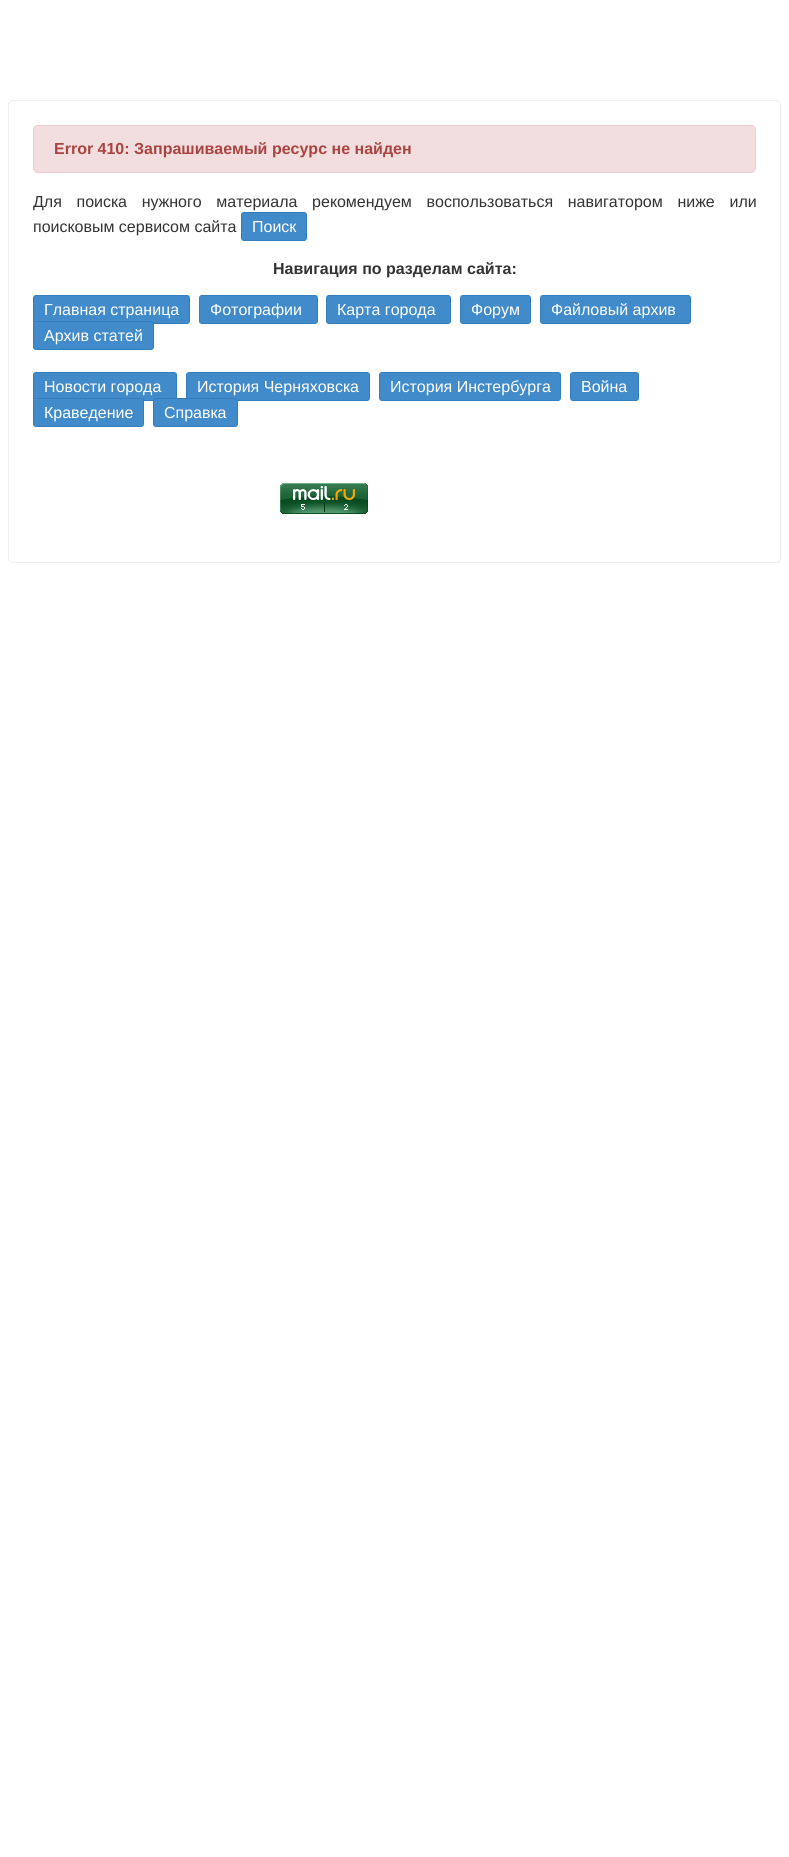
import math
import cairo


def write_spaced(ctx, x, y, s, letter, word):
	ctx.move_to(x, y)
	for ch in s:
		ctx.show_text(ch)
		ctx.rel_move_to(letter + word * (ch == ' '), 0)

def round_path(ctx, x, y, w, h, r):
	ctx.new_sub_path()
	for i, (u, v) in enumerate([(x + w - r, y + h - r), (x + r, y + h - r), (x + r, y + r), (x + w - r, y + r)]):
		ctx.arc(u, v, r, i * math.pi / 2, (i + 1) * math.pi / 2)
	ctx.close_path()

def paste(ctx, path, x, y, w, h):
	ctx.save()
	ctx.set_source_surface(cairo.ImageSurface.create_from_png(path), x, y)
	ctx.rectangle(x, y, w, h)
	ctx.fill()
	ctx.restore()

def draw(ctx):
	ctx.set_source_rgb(1, 1, 1)
	ctx.paint()
	round_path(ctx, 8.5, 100.5, 772, 462, 4.5)
	ctx.set_source_rgb(0.933, 0.933, 0.933)
	ctx.set_line_width(1)
	ctx.stroke()
	ctx.set_source_rgb(0.949, 0.871, 0.871)
	round_path(ctx, 33.5, 125.5, 722, 47, 4.5)
	ctx.fill_preserve()
	ctx.set_source_rgb(0.922, 0.8, 0.82)
	ctx.stroke()
	ctx.select_font_face('Liberation Sans', cairo.FONT_SLANT_NORMAL, cairo.FONT_WEIGHT_BOLD)
	ctx.set_font_size(16)
	ctx.set_source_rgb(0.663, 0.267, 0.259)
	ctx.move_to(54, 154)
	ctx.show_text('Error 410: Запрашиваемый ресурс не найден')
	ctx.select_font_face('Liberation Sans')
	ctx.set_source_rgb(0.2, 0.2, 0.2)
	write_spaced(ctx, 33, 207, 'Для поиска нужного материала рекомендуем воспользоваться навигатором ниже или', 0, 10.25)
	ctx.move_to(33, 232)
	ctx.show_text('поисковым сервисом сайта')
	ctx.set_source_rgb(0.259, 0.545, 0.792)
	round_path(ctx, 241.5, 212.5, 65, 28, 2.5)
	ctx.fill_preserve()
	ctx.set_source_rgb(0.208, 0.494, 0.741)
	ctx.stroke()
	ctx.set_source_rgb(1, 1, 1)
	ctx.move_to(252, 232)
	ctx.show_text('Поиск')
	ctx.select_font_face('Liberation Sans', cairo.FONT_SLANT_NORMAL, cairo.FONT_WEIGHT_BOLD)
	ctx.set_source_rgb(0.2, 0.2, 0.2)
	ctx.move_to(273, 274)
	ctx.show_text('Навигация по разделам сайта:')
	ctx.set_source_rgb(0.259, 0.545, 0.792)
	round_path(ctx, 33.5, 295.5, 156, 28, 2.5)
	ctx.fill_preserve()
	ctx.set_source_rgb(0.208, 0.494, 0.741)
	ctx.stroke()
	ctx.select_font_face('Liberation Sans')
	ctx.set_source_rgb(1, 1, 1)
	ctx.move_to(44, 315)
	ctx.show_text('Главная страница')
	ctx.set_source_rgb(0.259, 0.545, 0.792)
	round_path(ctx, 199.5, 295.5, 118, 28, 2.5)
	ctx.fill_preserve()
	ctx.set_source_rgb(0.208, 0.494, 0.741)
	ctx.stroke()
	ctx.set_source_rgb(1, 1, 1)
	ctx.move_to(210, 315)
	ctx.show_text('Фотографии')
	ctx.set_source_rgb(0.259, 0.545, 0.792)
	round_path(ctx, 326.5, 295.5, 124, 28, 2.5)
	ctx.fill_preserve()
	ctx.set_source_rgb(0.208, 0.494, 0.741)
	ctx.stroke()
	ctx.set_source_rgb(1, 1, 1)
	ctx.move_to(337, 315)
	ctx.show_text('Карта города')
	ctx.set_source_rgb(0.259, 0.545, 0.792)
	round_path(ctx, 460.5, 295.5, 70, 28, 2.5)
	ctx.fill_preserve()
	ctx.set_source_rgb(0.208, 0.494, 0.741)
	ctx.stroke()
	ctx.set_source_rgb(1, 1, 1)
	ctx.move_to(471, 315)
	ctx.show_text('Форум')
	ctx.set_source_rgb(0.259, 0.545, 0.792)
	round_path(ctx, 540.5, 295.5, 150, 28, 2.5)
	ctx.fill_preserve()
	ctx.set_source_rgb(0.208, 0.494, 0.741)
	ctx.stroke()
	ctx.set_source_rgb(1, 1, 1)
	ctx.move_to(551, 315)
	ctx.show_text('Файловый архив')
	ctx.set_source_rgb(0.259, 0.545, 0.792)
	round_path(ctx, 33.5, 321.5, 120, 28, 2.5)
	ctx.fill_preserve()
	ctx.set_source_rgb(0.208, 0.494, 0.741)
	ctx.stroke()
	ctx.set_source_rgb(1, 1, 1)
	ctx.move_to(44, 341)
	ctx.show_text('Архив статей')
	ctx.set_source_rgb(0.259, 0.545, 0.792)
	round_path(ctx, 33.5, 372.5, 143, 28, 2.5)
	ctx.fill_preserve()
	ctx.set_source_rgb(0.208, 0.494, 0.741)
	ctx.stroke()
	ctx.set_source_rgb(1, 1, 1)
	ctx.move_to(44, 392)
	ctx.show_text('Новости города')
	ctx.set_source_rgb(0.259, 0.545, 0.792)
	round_path(ctx, 186.5, 372.5, 183, 28, 2.5)
	ctx.fill_preserve()
	ctx.set_source_rgb(0.208, 0.494, 0.741)
	ctx.stroke()
	ctx.set_source_rgb(1, 1, 1)
	ctx.move_to(197, 392)
	ctx.show_text('История Черняховска')
	ctx.set_source_rgb(0.259, 0.545, 0.792)
	round_path(ctx, 379.5, 372.5, 181, 28, 2.5)
	ctx.fill_preserve()
	ctx.set_source_rgb(0.208, 0.494, 0.741)
	ctx.stroke()
	ctx.set_source_rgb(1, 1, 1)
	ctx.move_to(390, 392)
	ctx.show_text('История Инстербурга')
	ctx.set_source_rgb(0.259, 0.545, 0.792)
	round_path(ctx, 570.5, 372.5, 68, 28, 2.5)
	ctx.fill_preserve()
	ctx.set_source_rgb(0.208, 0.494, 0.741)
	ctx.stroke()
	ctx.set_source_rgb(1, 1, 1)
	ctx.move_to(581, 392)
	ctx.show_text('Война')
	ctx.set_source_rgb(0.259, 0.545, 0.792)
	round_path(ctx, 33.5, 398.5, 110, 28, 2.5)
	ctx.fill_preserve()
	ctx.set_source_rgb(0.208, 0.494, 0.741)
	ctx.stroke()
	ctx.set_source_rgb(1, 1, 1)
	ctx.move_to(44, 418)
	ctx.show_text('Краведение')
	ctx.set_source_rgb(0.259, 0.545, 0.792)
	round_path(ctx, 153.5, 398.5, 84, 28, 2.5)
	ctx.fill_preserve()
	ctx.set_source_rgb(0.208, 0.494, 0.741)
	ctx.stroke()
	ctx.set_source_rgb(1, 1, 1)
	ctx.move_to(164, 418)
	ctx.show_text('Справка')
	paste(ctx, 'media/1.png', 280, 483, 88, 31)


surface = cairo.ImageSurface(cairo.FORMAT_RGB24, 789, 1857)
ctx = cairo.Context(surface)
options = cairo.FontOptions()
options.set_hint_metrics(cairo.HINT_METRICS_OFF)
options.set_hint_style(cairo.HINT_STYLE_NONE)
ctx.set_font_options(options)
ctx.set_miter_limit(4)
draw(ctx)
surface.write_to_png('image.png')
